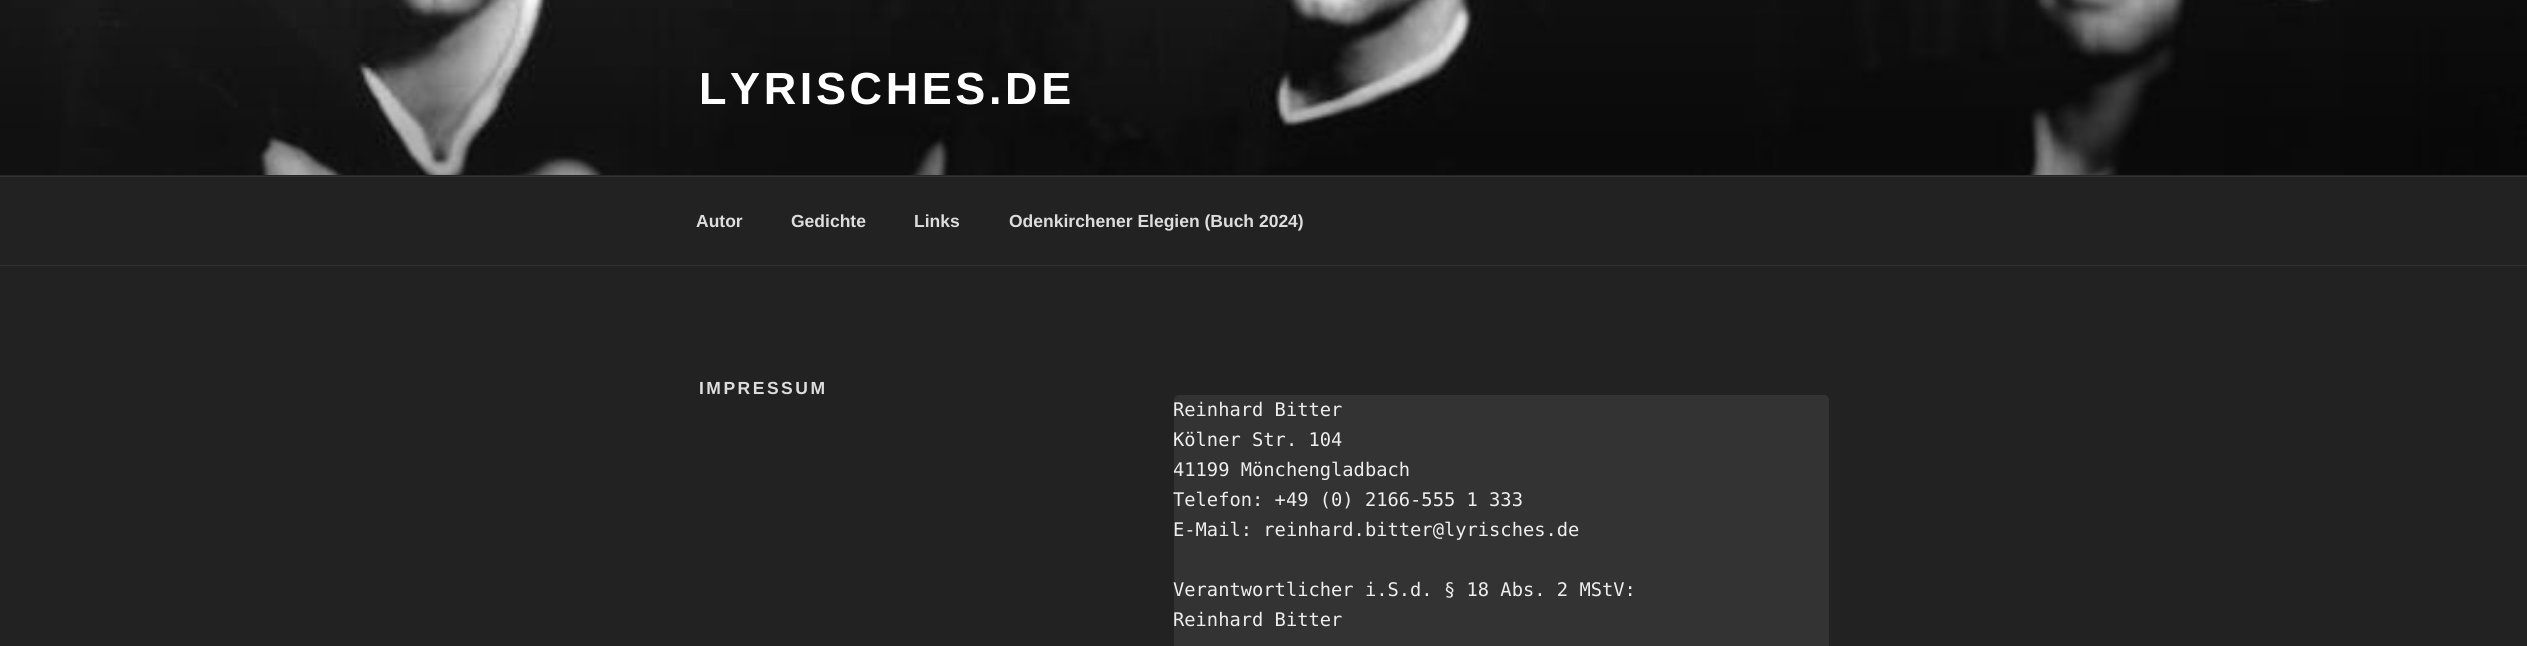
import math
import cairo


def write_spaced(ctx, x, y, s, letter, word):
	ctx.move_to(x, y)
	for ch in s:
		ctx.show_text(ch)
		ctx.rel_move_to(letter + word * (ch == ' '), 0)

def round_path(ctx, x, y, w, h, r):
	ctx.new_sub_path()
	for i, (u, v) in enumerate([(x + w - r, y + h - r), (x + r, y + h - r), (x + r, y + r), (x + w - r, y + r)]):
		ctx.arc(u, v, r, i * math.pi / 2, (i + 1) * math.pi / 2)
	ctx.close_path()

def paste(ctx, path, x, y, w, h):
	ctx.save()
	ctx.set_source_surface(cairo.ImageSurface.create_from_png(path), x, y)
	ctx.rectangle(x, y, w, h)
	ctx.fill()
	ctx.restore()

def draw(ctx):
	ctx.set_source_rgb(0.133, 0.133, 0.133)
	ctx.paint()
	ctx.set_source_rgb(0.149, 0.149, 0.149)
	ctx.rectangle(0, 175, 2527, 1)
	ctx.fill()
	paste(ctx, 'media/1.png', 0, 0, 2527, 175)
	ctx.select_font_face('Liberation Sans', cairo.FONT_SLANT_NORMAL, cairo.FONT_WEIGHT_BOLD)
	ctx.set_font_size(45)
	ctx.set_source_rgb(1, 1, 1)
	write_spaced(ctx, 699, 104, 'LYRISCHES.DE', 3.6, 0)
	ctx.set_source_rgb(0.2, 0.2, 0.2)
	ctx.rectangle(0, 176, 2527, 1)
	ctx.fill()
	ctx.rectangle(0, 265, 2527, 1)
	ctx.fill()
	ctx.set_font_size(17.5)
	ctx.set_source_rgb(0.867, 0.867, 0.867)
	for x, y, s in [
		(696, 227, 'Autor'),
		(791, 227, 'Gedichte'),
		(914, 227, 'Links'),
		(1009, 227, 'Odenkirchener Elegien (Buch 2024)'),
	]:
		ctx.move_to(x, y)
		ctx.show_text(s)
	write_spaced(ctx, 699, 394, 'IMPRESSUM', 2.5, 0)
	ctx.set_source_rgb(0.2, 0.2, 0.2)
	round_path(ctx, 1174, 395, 655, 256, 5)
	ctx.fill()
	ctx.select_font_face('DejaVu Sans Mono')
	ctx.set_font_size(18.75)
	ctx.set_source_rgb(0.933, 0.933, 0.933)
	for x, y, s in [
		(1173, 416, 'Reinhard Bitter'),
		(1173, 446, 'Kölner Str. 104'),
		(1173, 476, '41199 Mönchengladbach'),
		(1173, 506, 'Telefon: +49 (0) 2166-555 1 333'),
		(1173, 536, 'E-Mail: reinhard.bitter@lyrisches.de'),
		(1173, 596, 'Verantwortlicher i.S.d. § 18 Abs. 2 MStV:'),
		(1173, 626, 'Reinhard Bitter'),
	]:
		ctx.move_to(x, y)
		ctx.show_text(s)


surface = cairo.ImageSurface(cairo.FORMAT_RGB24, 2527, 646)
ctx = cairo.Context(surface)
options = cairo.FontOptions()
options.set_hint_metrics(cairo.HINT_METRICS_OFF)
options.set_hint_style(cairo.HINT_STYLE_NONE)
ctx.set_font_options(options)
ctx.set_miter_limit(4)
draw(ctx)
surface.write_to_png('image.png')
